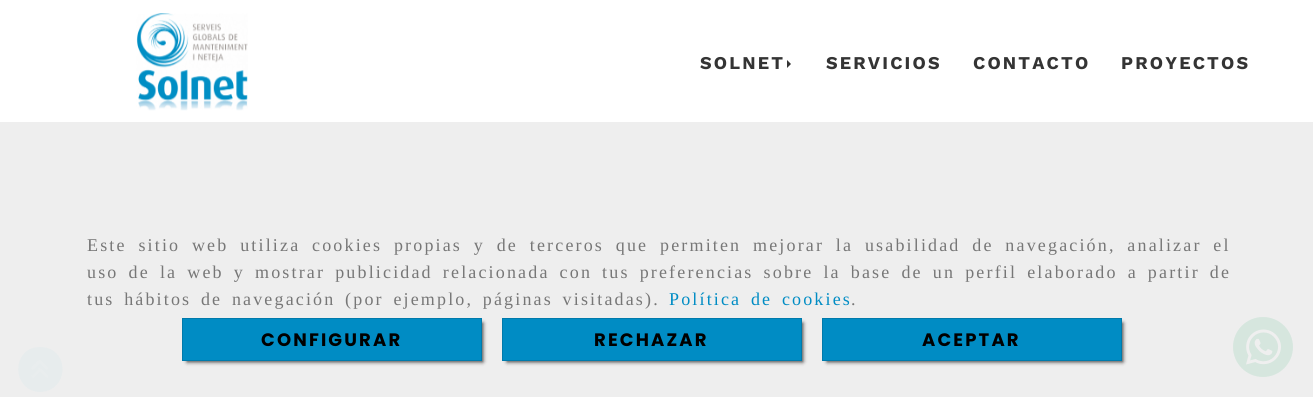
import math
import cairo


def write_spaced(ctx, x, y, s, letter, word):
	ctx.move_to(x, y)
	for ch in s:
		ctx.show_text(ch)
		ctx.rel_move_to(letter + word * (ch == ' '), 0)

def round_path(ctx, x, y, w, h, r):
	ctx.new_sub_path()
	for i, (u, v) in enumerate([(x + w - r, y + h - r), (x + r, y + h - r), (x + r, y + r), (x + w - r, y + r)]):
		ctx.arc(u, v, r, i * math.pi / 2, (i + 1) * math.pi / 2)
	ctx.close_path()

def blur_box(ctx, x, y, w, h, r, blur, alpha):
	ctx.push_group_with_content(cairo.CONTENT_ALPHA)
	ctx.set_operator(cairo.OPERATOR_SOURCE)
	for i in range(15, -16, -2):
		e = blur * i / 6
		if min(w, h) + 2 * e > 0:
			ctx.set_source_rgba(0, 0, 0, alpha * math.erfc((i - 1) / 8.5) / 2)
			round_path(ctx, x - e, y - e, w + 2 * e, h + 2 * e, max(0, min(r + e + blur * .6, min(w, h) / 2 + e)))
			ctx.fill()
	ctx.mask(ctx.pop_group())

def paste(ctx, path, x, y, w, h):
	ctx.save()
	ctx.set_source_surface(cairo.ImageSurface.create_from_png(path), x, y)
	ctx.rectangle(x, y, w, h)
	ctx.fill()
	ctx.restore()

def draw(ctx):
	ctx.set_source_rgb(0.933, 0.933, 0.933)
	ctx.paint()
	ctx.set_source_rgb(1, 1, 1)
	ctx.rectangle(0, 0, 1313, 122)
	ctx.fill()
	paste(ctx, 'media/1.png', 136, 13, 112, 98)
	ctx.select_font_face('Work Sans', cairo.FONT_SLANT_NORMAL, cairo.FONT_WEIGHT_BOLD)
	ctx.set_font_size(18)
	ctx.set_source_rgb(0.204, 0.204, 0.204)
	write_spaced(ctx, 700, 69, 'SOLNET', 2.16, 0)
	ctx.new_path()
	ctx.move_to(787, 68)
	ctx.line_to(787, 60)
	ctx.line_to(791, 64)
	ctx.close_path()
	ctx.fill()
	for x, y, s in [
		(826, 69, 'SERVICIOS'),
		(973, 69, 'CONTACTO'),
		(1121, 69, 'PROYECTOS'),
	]:
		write_spaced(ctx, x, y, s, 2.16, 0)
	ctx.set_source_rgb(0.906, 0.922, 0.929)
	ctx.new_path()
	ctx.move_to(40, 392)
	ctx.curve_to(70, 391, 70, 347, 40, 347)
	ctx.curve_to(11, 347, 11, 391, 40, 392)
	ctx.close_path()
	ctx.fill()
	paste(ctx, 'media/2.png', 31, 360, 17, 18)
	ctx.select_font_face('Liberation Serif')
	ctx.set_source_rgb(0.467, 0.467, 0.467)
	write_spaced(ctx, 87, 251, 'Este sitio web utiliza cookies propias y de terceros que permiten mejorar la usabilidad de navegación, analizar el', 2.16, 5.1)
	write_spaced(ctx, 87, 278, 'uso de la web y mostrar publicidad relacionada con tus preferencias sobre la base de un perfil elaborado a partir de', 2.16, 3.4)
	write_spaced(ctx, 87, 305, 'tus hábitos de navegación (por ejemplo, páginas visitadas).', 2.16, 3)
	ctx.set_source_rgb(0, 0.549, 0.769)
	write_spaced(ctx, 669, 305, 'Política de cookies', 2.16, 3)
	ctx.set_source_rgb(0.467, 0.467, 0.467)
	write_spaced(ctx, 851, 305, '.', 2.16, 0)
	ctx.set_source_rgb(0, 0, 0)
	blur_box(ctx, 187, 323, 296, 39, 0, 2, 0.75)
	ctx.set_source_rgb(0, 0.549, 0.769)
	ctx.rectangle(182.5, 318.5, 299, 42)
	ctx.fill_preserve()
	ctx.set_source_rgb(0, 0.478, 0.671)
	ctx.set_line_width(1)
	ctx.stroke()
	ctx.select_font_face('Poppins', cairo.FONT_SLANT_NORMAL, cairo.FONT_WEIGHT_BOLD)
	ctx.set_source_rgb(0, 0, 0)
	write_spaced(ctx, 261, 346, 'CONFIGURAR', 2.16, 0)
	ctx.set_source_rgb(0, 0, 0)
	blur_box(ctx, 507, 323, 296, 39, 0, 2, 0.75)
	ctx.set_source_rgb(0, 0.549, 0.769)
	ctx.rectangle(502.5, 318.5, 299, 42)
	ctx.fill_preserve()
	ctx.set_source_rgb(0, 0.478, 0.671)
	ctx.stroke()
	ctx.set_source_rgb(0, 0, 0)
	write_spaced(ctx, 594, 346, 'RECHAZAR', 2.16, 0)
	ctx.set_source_rgb(0, 0, 0)
	blur_box(ctx, 827, 323, 296, 39, 0, 2, 0.75)
	ctx.set_source_rgb(0, 0.549, 0.769)
	ctx.rectangle(822.5, 318.5, 299, 42)
	ctx.fill_preserve()
	ctx.set_source_rgb(0, 0.478, 0.671)
	ctx.stroke()
	ctx.set_source_rgb(0, 0, 0)
	write_spaced(ctx, 922, 346, 'ACEPTAR', 2.16, 0)
	ctx.set_source_rgb(0.839, 0.902, 0.871)
	ctx.new_path()
	ctx.arc(1263, 347, 30, 0, 2 * math.pi)
	ctx.fill()
	paste(ctx, 'media/3.png', 1246, 329, 35, 36)


surface = cairo.ImageSurface(cairo.FORMAT_RGB24, 1313, 397)
ctx = cairo.Context(surface)
options = cairo.FontOptions()
options.set_hint_metrics(cairo.HINT_METRICS_OFF)
options.set_hint_style(cairo.HINT_STYLE_NONE)
ctx.set_font_options(options)
ctx.set_miter_limit(4)
draw(ctx)
surface.write_to_png('image.png')
